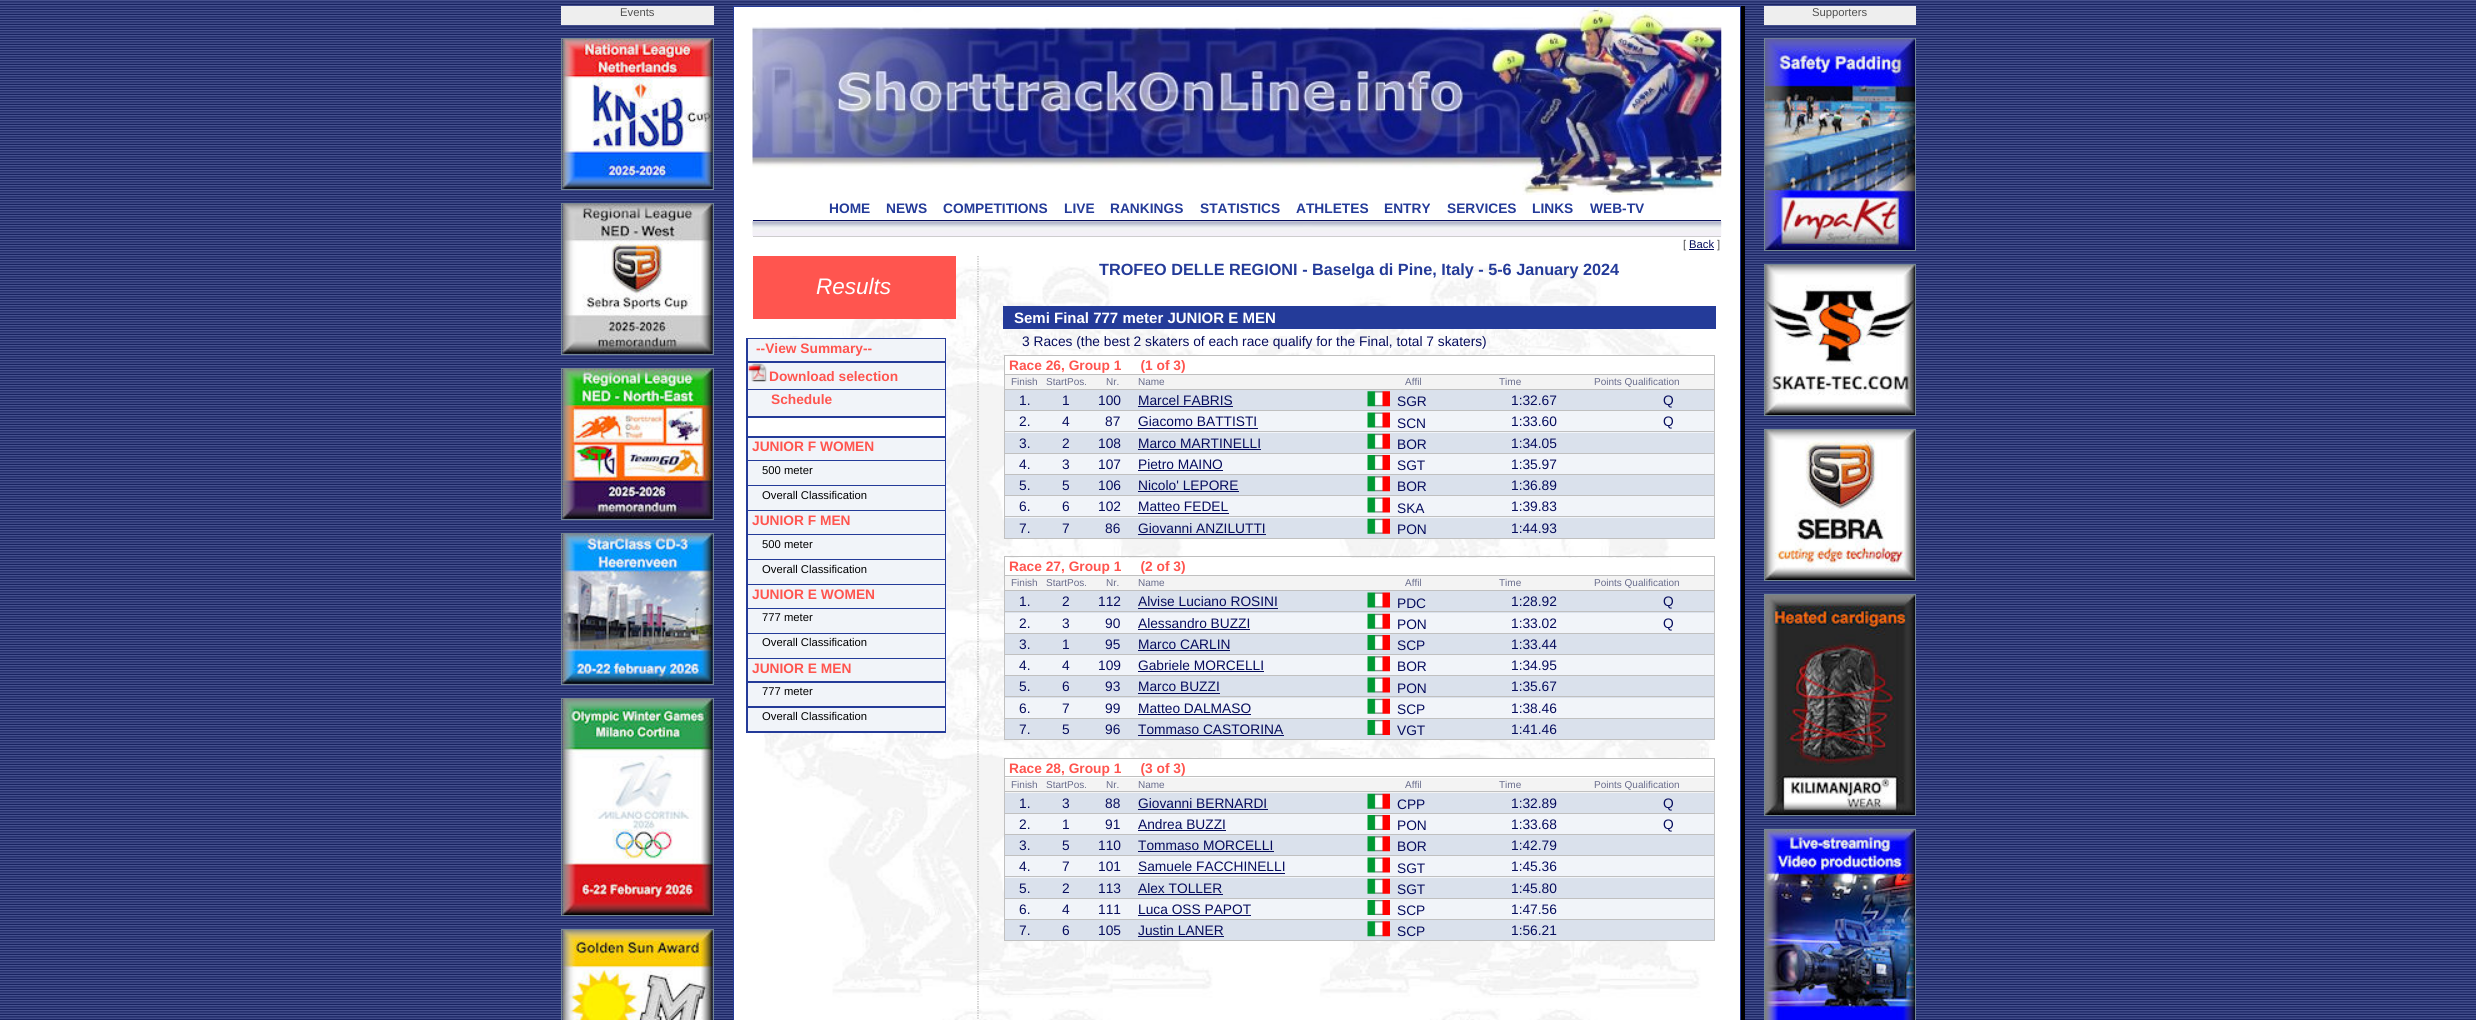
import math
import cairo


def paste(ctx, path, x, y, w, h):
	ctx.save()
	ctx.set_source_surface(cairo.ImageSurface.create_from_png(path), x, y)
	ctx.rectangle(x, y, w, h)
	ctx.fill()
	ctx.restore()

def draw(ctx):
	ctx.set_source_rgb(1, 1, 1)
	ctx.paint()
	paste(ctx, 'media/1.png', 0, 0, 2476, 1020)
	ctx.set_source_rgb(0.933, 0.933, 0.933)
	ctx.rectangle(561, 6, 153, 19)
	ctx.fill()
	ctx.select_font_face('Liberation Sans')
	ctx.set_font_size(11.25)
	ctx.set_source_rgb(0.314, 0.314, 0.314)
	ctx.move_to(620, 16)
	ctx.show_text('Events')
	ctx.rectangle(561.5, 38.5, 152, 151)
	ctx.set_source_rgb(0.451, 0.529, 0.576)
	ctx.set_line_width(1)
	ctx.stroke()
	paste(ctx, 'media/2.png', 562, 38, 151, 151)
	ctx.rectangle(561.5, 203.5, 152, 151)
	ctx.stroke()
	paste(ctx, 'media/3.png', 562, 203, 151, 151)
	ctx.rectangle(561.5, 368.5, 152, 151)
	ctx.stroke()
	paste(ctx, 'media/4.png', 562, 368, 151, 151)
	ctx.rectangle(561.5, 533.5, 152, 151)
	ctx.stroke()
	paste(ctx, 'media/5.png', 562, 533, 151, 151)
	ctx.rectangle(561.5, 698.5, 152, 217)
	ctx.stroke()
	paste(ctx, 'media/6.png', 562, 698, 151, 217)
	ctx.rectangle(561.5, 929.5, 152, 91)
	ctx.stroke()
	paste(ctx, 'media/7.png', 562, 930, 151, 90)
	ctx.set_source_rgb(0.141, 0.231, 0.6)
	ctx.rectangle(733, 6, 1, 1014)
	ctx.fill()
	ctx.set_source_rgb(1, 1, 1)
	ctx.rectangle(734, 7, 1006, 1013)
	ctx.fill()
	ctx.set_source_rgb(0.141, 0.231, 0.6)
	ctx.rectangle(734, 6, 1006, 1)
	ctx.rectangle(1740, 6, 1, 1014)
	ctx.fill()
	ctx.set_source_rgb(0, 0, 0)
	ctx.rectangle(1741, 6, 4, 1014)
	ctx.fill()
	ctx.set_source_rgb(0.933, 0.933, 0.933)
	ctx.rectangle(1764, 6, 152, 19)
	ctx.fill()
	ctx.set_source_rgb(0.314, 0.314, 0.314)
	ctx.move_to(1812, 16)
	ctx.show_text('Supporters')
	ctx.rectangle(1764.5, 38.5, 151, 212)
	ctx.set_source_rgb(0.451, 0.529, 0.576)
	ctx.stroke()
	paste(ctx, 'media/8.png', 1765, 38, 150, 212)
	ctx.rectangle(1764.5, 264.5, 151, 151)
	ctx.stroke()
	paste(ctx, 'media/9.png', 1765, 265, 150, 150)
	ctx.rectangle(1764.5, 429.5, 151, 151)
	ctx.stroke()
	paste(ctx, 'media/10.png', 1765, 430, 150, 150)
	ctx.rectangle(1764.5, 594.5, 151, 221)
	ctx.stroke()
	paste(ctx, 'media/11.png', 1765, 595, 150, 220)
	ctx.rectangle(1764.5, 829.5, 151, 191)
	ctx.stroke()
	paste(ctx, 'media/12.png', 1765, 830, 150, 190)
	paste(ctx, 'media/13.png', 752, 7, 970, 188)
	ctx.select_font_face('Liberation Sans', cairo.FONT_SLANT_NORMAL, cairo.FONT_WEIGHT_BOLD)
	ctx.set_font_size(13.75)
	ctx.set_source_rgb(0.141, 0.231, 0.6)
	for x, y, s in [
		(829, 213, 'HOME'),
		(886, 213, 'NEWS'),
		(943, 213, 'COMPETITIONS'),
		(1064, 213, 'LIVE'),
		(1110, 213, 'RANKINGS'),
		(1200, 213, 'STATISTICS'),
		(1296, 213, 'ATHLETES'),
		(1384, 213, 'ENTRY'),
		(1447, 213, 'SERVICES'),
		(1532, 213, 'LINKS'),
		(1590, 213, 'WEB-TV'),
	]:
		ctx.move_to(x, y)
		ctx.show_text(s)
	ctx.set_source_rgb(0.024, 0.051, 0.369)
	ctx.rectangle(753, 220, 968, 1)
	ctx.fill()
	ctx.set_source_rgb(0.761, 0.757, 0.749)
	ctx.rectangle(753, 236, 968, 1)
	ctx.fill()
	paste(ctx, 'media/14.png', 752, 221, 970, 16)
	ctx.select_font_face('Liberation Sans')
	ctx.set_font_size(11.25)
	ctx.set_source_rgb(0.314, 0.314, 0.314)
	ctx.move_to(1683, 248)
	ctx.show_text('[')
	ctx.set_source_rgb(0.024, 0.051, 0.369)
	ctx.move_to(1689, 248)
	ctx.show_text('Back')
	ctx.rectangle(1689, 249, 25, 1)
	ctx.fill()
	ctx.set_source_rgb(0.314, 0.314, 0.314)
	ctx.move_to(1717, 248)
	ctx.show_text(']')
	paste(ctx, 'media/15.png', 764, 256, 957, 764)
	ctx.set_source_rgb(1, 0.333, 0.31)
	ctx.rectangle(753, 256, 203, 63)
	ctx.fill()
	ctx.select_font_face('Liberation Sans', cairo.FONT_SLANT_ITALIC)
	ctx.set_font_size(22.5)
	ctx.set_source_rgb(1, 1, 1)
	ctx.move_to(816, 294)
	ctx.show_text('Results')
	ctx.new_path()
	ctx.move_to(978, 256)
	ctx.line_to(978, 1007.5)
	ctx.set_source_rgb(0.71, 0.71, 0.71)
	ctx.set_line_width(1.2)
	ctx.set_dash([1.25, 1.25])
	ctx.stroke()
	ctx.select_font_face('Liberation Sans', cairo.FONT_SLANT_NORMAL, cairo.FONT_WEIGHT_BOLD)
	ctx.set_font_size(16.25)
	ctx.set_source_rgb(0.141, 0.231, 0.6)
	ctx.move_to(1099, 275)
	ctx.show_text('TROFEO DELLE REGIONI - Baselga di Pine, Italy - 5-6 January 2024')
	ctx.rectangle(1003, 306, 713, 23)
	ctx.fill()
	ctx.set_font_size(15)
	ctx.set_source_rgb(1, 1, 1)
	ctx.move_to(1014, 323)
	ctx.show_text('Semi Final 777 meter JUNIOR E MEN')
	ctx.select_font_face('Liberation Sans')
	ctx.set_font_size(13.75)
	ctx.set_source_rgb(0.024, 0.051, 0.369)
	ctx.move_to(1022, 346)
	ctx.show_text('3 Races (the best 2 skaters of each race qualify for the Final, total 7 skaters)')
	ctx.set_source_rgb(0.753, 0.753, 0.753)
	ctx.rectangle(1004, 355, 711, 1)
	ctx.rectangle(1714, 355, 1, 184)
	ctx.rectangle(1004, 538, 711, 1)
	ctx.rectangle(1004, 355, 1, 184)
	ctx.fill()
	ctx.set_source_rgb(1, 1, 1)
	ctx.rectangle(1005, 356, 705, 18)
	ctx.fill()
	ctx.select_font_face('Liberation Sans', cairo.FONT_SLANT_NORMAL, cairo.FONT_WEIGHT_BOLD)
	ctx.set_source_rgb(1, 0.333, 0.31)
	ctx.move_to(1009, 370)
	ctx.show_text('Race 26, Group 1     (1 of 3)')
	ctx.set_source_rgb(0.953, 0.953, 0.953)
	ctx.rectangle(1005, 375, 709, 14)
	ctx.fill()
	ctx.set_source_rgb(0.753, 0.753, 0.753)
	ctx.rectangle(1004, 374, 711, 1)
	ctx.rectangle(1004, 389, 711, 1)
	ctx.fill()
	ctx.select_font_face('Liberation Sans')
	ctx.set_font_size(10)
	ctx.set_source_rgb(0.408, 0.424, 0.549)
	for x, y, s in [
		(1011, 385, 'Finish'),
		(1046, 385, 'StartPos.'),
		(1106, 385, 'Nr.'),
		(1138, 385, 'Name'),
		(1405, 385, 'Affil'),
		(1499, 385, 'Time'),
		(1594, 385, 'Points Qualification'),
	]:
		ctx.move_to(x, y)
		ctx.show_text(s)
	ctx.set_source_rgb(0.855, 0.882, 0.922)
	ctx.rectangle(1005, 390, 709, 20)
	ctx.fill()
	ctx.set_font_size(13.75)
	ctx.set_source_rgb(0.024, 0.051, 0.369)
	for x, y, s in [
		(1019, 405, '1.'),
		(1062, 405, '1'),
		(1098, 405, '100'),
		(1138, 405, 'Marcel FABRIS'),
	]:
		ctx.move_to(x, y)
		ctx.show_text(s)
	ctx.rectangle(1138, 406, 95, 1)
	ctx.fill()
	paste(ctx, 'media/16.png', 1367, 391, 23, 16)
	for x, y, s in [
		(1397, 406, 'SGR'),
		(1511, 405, '1:32.67'),
		(1663, 405, 'Q'),
	]:
		ctx.move_to(x, y)
		ctx.show_text(s)
	ctx.set_source_rgb(0.945, 0.957, 0.973)
	ctx.rectangle(1005, 411, 709, 22)
	ctx.fill()
	ctx.set_source_rgb(0.024, 0.051, 0.369)
	for x, y, s in [
		(1019, 426, '2.'),
		(1062, 426, '4'),
		(1105, 426, '87'),
		(1138, 426, 'Giacomo BATTISTI'),
	]:
		ctx.move_to(x, y)
		ctx.show_text(s)
	ctx.rectangle(1138, 428, 120, 1)
	ctx.fill()
	paste(ctx, 'media/17.png', 1367, 412, 23, 16)
	ctx.move_to(1397, 428)
	ctx.show_text('SCN')
	ctx.move_to(1511, 426)
	ctx.show_text('1:33.60')
	ctx.set_source_rgb(0.753, 0.753, 0.753)
	ctx.rectangle(1004, 410, 711, 1)
	ctx.fill()
	ctx.set_source_rgb(0.024, 0.051, 0.369)
	ctx.move_to(1663, 426)
	ctx.show_text('Q')
	ctx.set_source_rgb(0.855, 0.882, 0.922)
	ctx.rectangle(1005, 433, 709, 20)
	ctx.fill()
	ctx.set_source_rgb(0.753, 0.753, 0.753)
	ctx.rectangle(1004, 431, 711, 1)
	ctx.fill()
	ctx.set_source_rgb(0.024, 0.051, 0.369)
	for x, y, s in [
		(1019, 448, '3.'),
		(1062, 448, '2'),
		(1098, 448, '108'),
		(1138, 448, 'Marco MARTINELLI'),
	]:
		ctx.move_to(x, y)
		ctx.show_text(s)
	ctx.rectangle(1138, 449, 123, 1)
	ctx.fill()
	paste(ctx, 'media/18.png', 1367, 433, 23, 16)
	ctx.move_to(1397, 449)
	ctx.show_text('BOR')
	ctx.move_to(1511, 448)
	ctx.show_text('1:34.05')
	ctx.set_source_rgb(0.945, 0.957, 0.973)
	ctx.rectangle(1005, 454, 709, 20)
	ctx.fill()
	ctx.set_source_rgb(0.753, 0.753, 0.753)
	ctx.rectangle(1004, 453, 711, 1)
	ctx.fill()
	ctx.set_source_rgb(0.024, 0.051, 0.369)
	for x, y, s in [
		(1019, 469, '4.'),
		(1062, 469, '3'),
		(1098, 469, '107'),
		(1138, 469, 'Pietro MAINO'),
	]:
		ctx.move_to(x, y)
		ctx.show_text(s)
	ctx.rectangle(1138, 470, 85, 1)
	ctx.fill()
	paste(ctx, 'media/19.png', 1367, 455, 23, 15)
	ctx.move_to(1397, 470)
	ctx.show_text('SGT')
	ctx.move_to(1511, 469)
	ctx.show_text('1:35.97')
	ctx.set_source_rgb(0.855, 0.882, 0.922)
	ctx.rectangle(1005, 475, 709, 20)
	ctx.fill()
	ctx.set_source_rgb(0.753, 0.753, 0.753)
	ctx.rectangle(1004, 474, 711, 1)
	ctx.fill()
	ctx.set_source_rgb(0.024, 0.051, 0.369)
	for x, y, s in [
		(1019, 490, '5.'),
		(1062, 490, '5'),
		(1098, 490, '106'),
		(1138, 490, 'Nicolo\' LEPORE'),
	]:
		ctx.move_to(x, y)
		ctx.show_text(s)
	ctx.rectangle(1138, 491, 101, 1)
	ctx.fill()
	paste(ctx, 'media/16.png', 1367, 476, 23, 16)
	ctx.move_to(1397, 491)
	ctx.show_text('BOR')
	ctx.move_to(1511, 490)
	ctx.show_text('1:36.89')
	ctx.set_source_rgb(0.945, 0.957, 0.973)
	ctx.rectangle(1005, 496, 709, 22)
	ctx.fill()
	ctx.set_source_rgb(0.753, 0.753, 0.753)
	ctx.rectangle(1004, 495, 711, 1)
	ctx.fill()
	ctx.set_source_rgb(0.024, 0.051, 0.369)
	for x, y, s in [
		(1019, 511, '6.'),
		(1062, 511, '6'),
		(1098, 511, '102'),
		(1138, 511, 'Matteo FEDEL'),
	]:
		ctx.move_to(x, y)
		ctx.show_text(s)
	ctx.rectangle(1138, 513, 91, 1)
	ctx.fill()
	paste(ctx, 'media/17.png', 1367, 497, 23, 16)
	ctx.move_to(1397, 513)
	ctx.show_text('SKA')
	ctx.move_to(1511, 511)
	ctx.show_text('1:39.83')
	ctx.set_source_rgb(0.855, 0.882, 0.922)
	ctx.rectangle(1005, 518, 709, 20)
	ctx.fill()
	ctx.set_source_rgb(0.753, 0.753, 0.753)
	ctx.rectangle(1004, 516, 711, 1)
	ctx.fill()
	ctx.set_source_rgb(0.024, 0.051, 0.369)
	for x, y, s in [
		(1019, 533, '7.'),
		(1062, 533, '7'),
		(1105, 533, '86'),
		(1138, 533, 'Giovanni ANZILUTTI'),
	]:
		ctx.move_to(x, y)
		ctx.show_text(s)
	ctx.rectangle(1138, 534, 128, 1)
	ctx.fill()
	paste(ctx, 'media/18.png', 1367, 518, 23, 16)
	ctx.move_to(1397, 534)
	ctx.show_text('PON')
	ctx.move_to(1511, 533)
	ctx.show_text('1:44.93')
	ctx.set_source_rgb(0.753, 0.753, 0.753)
	ctx.rectangle(1004, 556, 711, 1)
	ctx.rectangle(1714, 556, 1, 184)
	ctx.rectangle(1004, 739, 711, 1)
	ctx.rectangle(1004, 556, 1, 184)
	ctx.fill()
	ctx.set_source_rgb(1, 1, 1)
	ctx.rectangle(1005, 558, 665, 17)
	ctx.fill()
	ctx.select_font_face('Liberation Sans', cairo.FONT_SLANT_NORMAL, cairo.FONT_WEIGHT_BOLD)
	ctx.set_source_rgb(1, 0.333, 0.31)
	ctx.move_to(1009, 571)
	ctx.show_text('Race 27, Group 1     (2 of 3)')
	ctx.set_source_rgb(0.953, 0.953, 0.953)
	ctx.rectangle(1005, 576, 709, 14)
	ctx.fill()
	ctx.set_source_rgb(0.753, 0.753, 0.753)
	ctx.rectangle(1004, 575, 711, 1)
	ctx.rectangle(1004, 590, 711, 1)
	ctx.fill()
	ctx.select_font_face('Liberation Sans')
	ctx.set_font_size(10)
	ctx.set_source_rgb(0.408, 0.424, 0.549)
	for x, y, s in [
		(1011, 586, 'Finish'),
		(1046, 586, 'StartPos.'),
		(1106, 586, 'Nr.'),
		(1138, 586, 'Name'),
		(1405, 586, 'Affil'),
		(1499, 586, 'Time'),
		(1594, 586, 'Points Qualification'),
	]:
		ctx.move_to(x, y)
		ctx.show_text(s)
	ctx.set_source_rgb(0.855, 0.882, 0.922)
	ctx.rectangle(1005, 591, 709, 22)
	ctx.fill()
	ctx.set_font_size(13.75)
	ctx.set_source_rgb(0.024, 0.051, 0.369)
	for x, y, s in [
		(1019, 606, '1.'),
		(1062, 606, '2'),
		(1098, 606, '112'),
		(1138, 606, 'Alvise Luciano ROSINI'),
	]:
		ctx.move_to(x, y)
		ctx.show_text(s)
	ctx.rectangle(1138, 608, 140, 1)
	ctx.fill()
	paste(ctx, 'media/20.png', 1367, 592, 23, 16)
	for x, y, s in [
		(1397, 608, 'PDC'),
		(1511, 606, '1:28.92'),
		(1663, 606, 'Q'),
	]:
		ctx.move_to(x, y)
		ctx.show_text(s)
	ctx.set_source_rgb(0.945, 0.957, 0.973)
	ctx.rectangle(1005, 613, 709, 20)
	ctx.fill()
	ctx.set_source_rgb(0.024, 0.051, 0.369)
	for x, y, s in [
		(1019, 628, '2.'),
		(1062, 628, '3'),
		(1105, 628, '90'),
		(1138, 628, 'Alessandro BUZZI'),
	]:
		ctx.move_to(x, y)
		ctx.show_text(s)
	ctx.rectangle(1138, 629, 112, 1)
	ctx.fill()
	paste(ctx, 'media/21.png', 1367, 613, 23, 16)
	ctx.move_to(1397, 629)
	ctx.show_text('PON')
	ctx.move_to(1511, 628)
	ctx.show_text('1:33.02')
	ctx.set_source_rgb(0.753, 0.753, 0.753)
	ctx.rectangle(1004, 611, 711, 1)
	ctx.fill()
	ctx.set_source_rgb(0.024, 0.051, 0.369)
	ctx.move_to(1663, 628)
	ctx.show_text('Q')
	ctx.set_source_rgb(0.855, 0.882, 0.922)
	ctx.rectangle(1005, 634, 709, 20)
	ctx.fill()
	ctx.set_source_rgb(0.753, 0.753, 0.753)
	ctx.rectangle(1004, 633, 711, 1)
	ctx.fill()
	ctx.set_source_rgb(0.024, 0.051, 0.369)
	for x, y, s in [
		(1019, 649, '3.'),
		(1062, 649, '1'),
		(1105, 649, '95'),
		(1138, 649, 'Marco CARLIN'),
	]:
		ctx.move_to(x, y)
		ctx.show_text(s)
	ctx.rectangle(1138, 650, 92, 1)
	ctx.fill()
	paste(ctx, 'media/22.png', 1367, 635, 23, 15)
	ctx.move_to(1397, 650)
	ctx.show_text('SCP')
	ctx.move_to(1511, 649)
	ctx.show_text('1:33.44')
	ctx.set_source_rgb(0.945, 0.957, 0.973)
	ctx.rectangle(1005, 655, 709, 20)
	ctx.fill()
	ctx.set_source_rgb(0.753, 0.753, 0.753)
	ctx.rectangle(1004, 654, 711, 1)
	ctx.fill()
	ctx.set_source_rgb(0.024, 0.051, 0.369)
	for x, y, s in [
		(1019, 670, '4.'),
		(1062, 670, '4'),
		(1098, 670, '109'),
		(1138, 670, 'Gabriele MORCELLI'),
	]:
		ctx.move_to(x, y)
		ctx.show_text(s)
	ctx.rectangle(1138, 671, 126, 1)
	ctx.fill()
	paste(ctx, 'media/23.png', 1367, 656, 23, 16)
	ctx.move_to(1397, 671)
	ctx.show_text('BOR')
	ctx.move_to(1511, 670)
	ctx.show_text('1:34.95')
	ctx.set_source_rgb(0.855, 0.882, 0.922)
	ctx.rectangle(1005, 676, 709, 22)
	ctx.fill()
	ctx.set_source_rgb(0.753, 0.753, 0.753)
	ctx.rectangle(1004, 675, 711, 1)
	ctx.fill()
	ctx.set_source_rgb(0.024, 0.051, 0.369)
	for x, y, s in [
		(1019, 691, '5.'),
		(1062, 691, '6'),
		(1105, 691, '93'),
		(1138, 691, 'Marco BUZZI'),
	]:
		ctx.move_to(x, y)
		ctx.show_text(s)
	ctx.rectangle(1138, 693, 82, 1)
	ctx.fill()
	paste(ctx, 'media/20.png', 1367, 677, 23, 16)
	ctx.move_to(1397, 693)
	ctx.show_text('PON')
	ctx.move_to(1511, 691)
	ctx.show_text('1:35.67')
	ctx.set_source_rgb(0.945, 0.957, 0.973)
	ctx.rectangle(1005, 698, 709, 20)
	ctx.fill()
	ctx.set_source_rgb(0.753, 0.753, 0.753)
	ctx.rectangle(1004, 696, 711, 1)
	ctx.fill()
	ctx.set_source_rgb(0.024, 0.051, 0.369)
	for x, y, s in [
		(1019, 713, '6.'),
		(1062, 713, '7'),
		(1105, 713, '99'),
		(1138, 713, 'Matteo DALMASO'),
	]:
		ctx.move_to(x, y)
		ctx.show_text(s)
	ctx.rectangle(1138, 714, 113, 1)
	ctx.fill()
	paste(ctx, 'media/21.png', 1367, 698, 23, 16)
	ctx.move_to(1397, 714)
	ctx.show_text('SCP')
	ctx.move_to(1511, 713)
	ctx.show_text('1:38.46')
	ctx.set_source_rgb(0.855, 0.882, 0.922)
	ctx.rectangle(1005, 719, 709, 20)
	ctx.fill()
	ctx.set_source_rgb(0.753, 0.753, 0.753)
	ctx.rectangle(1004, 718, 711, 1)
	ctx.fill()
	ctx.set_source_rgb(0.024, 0.051, 0.369)
	for x, y, s in [
		(1019, 734, '7.'),
		(1062, 734, '5'),
		(1105, 734, '96'),
		(1138, 734, 'Tommaso CASTORINA'),
	]:
		ctx.move_to(x, y)
		ctx.show_text(s)
	ctx.rectangle(1138, 735, 146, 1)
	ctx.fill()
	paste(ctx, 'media/22.png', 1367, 720, 23, 15)
	ctx.move_to(1397, 735)
	ctx.show_text('VGT')
	ctx.move_to(1511, 734)
	ctx.show_text('1:41.46')
	ctx.set_source_rgb(0.753, 0.753, 0.753)
	ctx.rectangle(1004, 758, 711, 1)
	ctx.rectangle(1714, 758, 1, 183)
	ctx.rectangle(1004, 940, 711, 1)
	ctx.rectangle(1004, 758, 1, 183)
	ctx.fill()
	ctx.set_source_rgb(1, 1, 1)
	ctx.rectangle(1005, 759, 705, 19)
	ctx.fill()
	ctx.select_font_face('Liberation Sans', cairo.FONT_SLANT_NORMAL, cairo.FONT_WEIGHT_BOLD)
	ctx.set_source_rgb(1, 0.333, 0.31)
	ctx.move_to(1009, 773)
	ctx.show_text('Race 28, Group 1     (3 of 3)')
	ctx.set_source_rgb(0.953, 0.953, 0.953)
	ctx.rectangle(1032, 778, 682, 15)
	ctx.fill()
	ctx.set_source_rgb(0.753, 0.753, 0.753)
	ctx.rectangle(1004, 776, 711, 1)
	ctx.rectangle(1004, 791, 711, 1)
	ctx.fill()
	ctx.select_font_face('Liberation Sans')
	ctx.set_font_size(10)
	ctx.set_source_rgb(0.408, 0.424, 0.549)
	for x, y, s in [
		(1011, 788, 'Finish'),
		(1046, 788, 'StartPos.'),
		(1106, 788, 'Nr.'),
		(1138, 788, 'Name'),
		(1405, 788, 'Affil'),
		(1499, 788, 'Time'),
		(1594, 788, 'Points Qualification'),
	]:
		ctx.move_to(x, y)
		ctx.show_text(s)
	ctx.set_source_rgb(0.855, 0.882, 0.922)
	ctx.rectangle(1005, 793, 709, 20)
	ctx.fill()
	ctx.set_font_size(13.75)
	ctx.set_source_rgb(0.024, 0.051, 0.369)
	for x, y, s in [
		(1019, 808, '1.'),
		(1062, 808, '3'),
		(1105, 808, '88'),
		(1138, 808, 'Giovanni BERNARDI'),
	]:
		ctx.move_to(x, y)
		ctx.show_text(s)
	ctx.rectangle(1138, 809, 130, 1)
	ctx.fill()
	paste(ctx, 'media/18.png', 1367, 793, 23, 16)
	for x, y, s in [
		(1397, 809, 'CPP'),
		(1511, 808, '1:32.89'),
		(1663, 808, 'Q'),
	]:
		ctx.move_to(x, y)
		ctx.show_text(s)
	ctx.set_source_rgb(0.945, 0.957, 0.973)
	ctx.rectangle(1005, 814, 709, 20)
	ctx.fill()
	ctx.set_source_rgb(0.024, 0.051, 0.369)
	for x, y, s in [
		(1019, 829, '2.'),
		(1062, 829, '1'),
		(1105, 829, '91'),
		(1138, 829, 'Andrea BUZZI'),
	]:
		ctx.move_to(x, y)
		ctx.show_text(s)
	ctx.rectangle(1138, 830, 88, 1)
	ctx.fill()
	paste(ctx, 'media/19.png', 1367, 815, 23, 15)
	ctx.move_to(1397, 830)
	ctx.show_text('PON')
	ctx.move_to(1511, 829)
	ctx.show_text('1:33.68')
	ctx.set_source_rgb(0.753, 0.753, 0.753)
	ctx.rectangle(1004, 813, 711, 1)
	ctx.fill()
	ctx.set_source_rgb(0.024, 0.051, 0.369)
	ctx.move_to(1663, 829)
	ctx.show_text('Q')
	ctx.set_source_rgb(0.855, 0.882, 0.922)
	ctx.rectangle(1005, 835, 709, 20)
	ctx.fill()
	ctx.set_source_rgb(0.753, 0.753, 0.753)
	ctx.rectangle(1004, 834, 711, 1)
	ctx.fill()
	ctx.set_source_rgb(0.024, 0.051, 0.369)
	for x, y, s in [
		(1019, 850, '3.'),
		(1062, 850, '5'),
		(1098, 850, '110'),
		(1138, 850, 'Tommaso MORCELLI'),
	]:
		ctx.move_to(x, y)
		ctx.show_text(s)
	ctx.rectangle(1138, 851, 136, 1)
	ctx.fill()
	paste(ctx, 'media/16.png', 1367, 836, 23, 16)
	ctx.move_to(1397, 851)
	ctx.show_text('BOR')
	ctx.move_to(1511, 850)
	ctx.show_text('1:42.79')
	ctx.set_source_rgb(0.945, 0.957, 0.973)
	ctx.rectangle(1005, 856, 709, 22)
	ctx.fill()
	ctx.set_source_rgb(0.753, 0.753, 0.753)
	ctx.rectangle(1004, 855, 711, 1)
	ctx.fill()
	ctx.set_source_rgb(0.024, 0.051, 0.369)
	for x, y, s in [
		(1019, 871, '4.'),
		(1062, 871, '7'),
		(1098, 871, '101'),
		(1138, 871, 'Samuele FACCHINELLI'),
	]:
		ctx.move_to(x, y)
		ctx.show_text(s)
	ctx.rectangle(1138, 873, 147, 1)
	ctx.fill()
	paste(ctx, 'media/17.png', 1367, 857, 23, 16)
	ctx.move_to(1397, 873)
	ctx.show_text('SGT')
	ctx.move_to(1511, 871)
	ctx.show_text('1:45.36')
	ctx.set_source_rgb(0.855, 0.882, 0.922)
	ctx.rectangle(1005, 878, 709, 20)
	ctx.fill()
	ctx.set_source_rgb(0.753, 0.753, 0.753)
	ctx.rectangle(1004, 876, 711, 1)
	ctx.fill()
	ctx.set_source_rgb(0.024, 0.051, 0.369)
	for x, y, s in [
		(1019, 893, '5.'),
		(1062, 893, '2'),
		(1098, 893, '113'),
		(1138, 893, 'Alex TOLLER'),
	]:
		ctx.move_to(x, y)
		ctx.show_text(s)
	ctx.rectangle(1138, 894, 85, 1)
	ctx.fill()
	paste(ctx, 'media/18.png', 1367, 878, 23, 16)
	ctx.move_to(1397, 894)
	ctx.show_text('SGT')
	ctx.move_to(1511, 893)
	ctx.show_text('1:45.80')
	ctx.set_source_rgb(0.945, 0.957, 0.973)
	ctx.rectangle(1005, 899, 709, 20)
	ctx.fill()
	ctx.set_source_rgb(0.753, 0.753, 0.753)
	ctx.rectangle(1004, 898, 711, 1)
	ctx.fill()
	ctx.set_source_rgb(0.024, 0.051, 0.369)
	for x, y, s in [
		(1019, 914, '6.'),
		(1062, 914, '4'),
		(1098, 914, '111'),
		(1138, 914, 'Luca OSS PAPOT'),
	]:
		ctx.move_to(x, y)
		ctx.show_text(s)
	ctx.rectangle(1138, 915, 113, 1)
	ctx.fill()
	paste(ctx, 'media/19.png', 1367, 900, 23, 15)
	ctx.move_to(1397, 915)
	ctx.show_text('SCP')
	ctx.move_to(1511, 914)
	ctx.show_text('1:47.56')
	ctx.set_source_rgb(0.855, 0.882, 0.922)
	ctx.rectangle(1005, 920, 709, 20)
	ctx.fill()
	ctx.set_source_rgb(0.753, 0.753, 0.753)
	ctx.rectangle(1004, 919, 711, 1)
	ctx.fill()
	ctx.set_source_rgb(0.024, 0.051, 0.369)
	for x, y, s in [
		(1019, 935, '7.'),
		(1062, 935, '6'),
		(1098, 935, '105'),
		(1138, 935, 'Justin LANER'),
	]:
		ctx.move_to(x, y)
		ctx.show_text(s)
	ctx.rectangle(1138, 936, 86, 1)
	ctx.fill()
	paste(ctx, 'media/16.png', 1367, 921, 23, 16)
	ctx.move_to(1397, 936)
	ctx.show_text('SCP')
	ctx.move_to(1511, 935)
	ctx.show_text('1:56.21')
	ctx.new_path()
	ctx.move_to(978, 1007.5)
	ctx.line_to(978, 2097.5)
	ctx.set_source_rgb(0.71, 0.71, 0.71)
	ctx.stroke()
	ctx.set_source_rgb(0.141, 0.231, 0.6)
	ctx.rectangle(746, 338, 200, 395)
	ctx.fill()
	ctx.set_source_rgb(0.945, 0.957, 0.973)
	ctx.rectangle(748, 339, 197, 22)
	ctx.fill()
	ctx.select_font_face('Liberation Sans', cairo.FONT_SLANT_NORMAL, cairo.FONT_WEIGHT_BOLD)
	ctx.set_source_rgb(1, 0.333, 0.31)
	ctx.move_to(756, 353)
	ctx.show_text('--View Summary--')
	ctx.set_source_rgb(0.945, 0.957, 0.973)
	ctx.rectangle(748, 363, 197, 26)
	ctx.fill()
	paste(ctx, 'media/24.png', 748, 363, 19, 19)
	ctx.set_source_rgb(1, 0.333, 0.31)
	ctx.move_to(769, 381)
	ctx.show_text('Download selection')
	ctx.set_source_rgb(0.945, 0.957, 0.973)
	ctx.rectangle(748, 390, 197, 26)
	ctx.fill()
	ctx.set_source_rgb(1, 0.333, 0.31)
	ctx.move_to(771, 404)
	ctx.show_text('Schedule')
	ctx.set_source_rgb(1, 1, 1)
	ctx.rectangle(748, 418, 197, 18)
	ctx.fill()
	ctx.set_source_rgb(0.945, 0.957, 0.973)
	ctx.rectangle(748, 438, 197, 22)
	ctx.fill()
	ctx.set_source_rgb(1, 0.333, 0.31)
	ctx.move_to(752, 451)
	ctx.show_text('JUNIOR F WOMEN')
	ctx.set_source_rgb(0.945, 0.957, 0.973)
	ctx.rectangle(748, 461, 197, 24)
	ctx.fill()
	ctx.select_font_face('Liberation Sans')
	ctx.set_font_size(11.25)
	ctx.set_source_rgb(0, 0, 0)
	ctx.move_to(762, 474)
	ctx.show_text('500 meter')
	ctx.set_source_rgb(0.945, 0.957, 0.973)
	ctx.rectangle(748, 486, 197, 24)
	ctx.fill()
	ctx.set_source_rgb(0, 0, 0)
	ctx.move_to(762, 499)
	ctx.show_text('Overall Classification')
	ctx.set_source_rgb(0.945, 0.957, 0.973)
	ctx.rectangle(748, 511, 197, 23)
	ctx.fill()
	ctx.select_font_face('Liberation Sans', cairo.FONT_SLANT_NORMAL, cairo.FONT_WEIGHT_BOLD)
	ctx.set_font_size(13.75)
	ctx.set_source_rgb(1, 0.333, 0.31)
	ctx.move_to(752, 525)
	ctx.show_text('JUNIOR F MEN')
	ctx.set_source_rgb(0.945, 0.957, 0.973)
	ctx.rectangle(748, 535, 197, 24)
	ctx.fill()
	ctx.select_font_face('Liberation Sans')
	ctx.set_font_size(11.25)
	ctx.set_source_rgb(0, 0, 0)
	ctx.move_to(762, 548)
	ctx.show_text('500 meter')
	ctx.set_source_rgb(0.945, 0.957, 0.973)
	ctx.rectangle(748, 560, 197, 24)
	ctx.fill()
	ctx.set_source_rgb(0, 0, 0)
	ctx.move_to(762, 573)
	ctx.show_text('Overall Classification')
	ctx.set_source_rgb(0.945, 0.957, 0.973)
	ctx.rectangle(748, 585, 197, 23)
	ctx.fill()
	ctx.select_font_face('Liberation Sans', cairo.FONT_SLANT_NORMAL, cairo.FONT_WEIGHT_BOLD)
	ctx.set_font_size(13.75)
	ctx.set_source_rgb(1, 0.333, 0.31)
	ctx.move_to(752, 599)
	ctx.show_text('JUNIOR E WOMEN')
	ctx.set_source_rgb(0.945, 0.957, 0.973)
	ctx.rectangle(748, 609, 197, 24)
	ctx.fill()
	ctx.select_font_face('Liberation Sans')
	ctx.set_font_size(11.25)
	ctx.set_source_rgb(0, 0, 0)
	ctx.move_to(762, 621)
	ctx.show_text('777 meter')
	ctx.set_source_rgb(0.945, 0.957, 0.973)
	ctx.rectangle(748, 634, 197, 24)
	ctx.fill()
	ctx.set_source_rgb(0, 0, 0)
	ctx.move_to(762, 646)
	ctx.show_text('Overall Classification')
	ctx.set_source_rgb(0.945, 0.957, 0.973)
	ctx.rectangle(748, 659, 197, 22)
	ctx.fill()
	ctx.select_font_face('Liberation Sans', cairo.FONT_SLANT_NORMAL, cairo.FONT_WEIGHT_BOLD)
	ctx.set_font_size(13.75)
	ctx.set_source_rgb(1, 0.333, 0.31)
	ctx.move_to(752, 673)
	ctx.show_text('JUNIOR E MEN')
	ctx.set_source_rgb(0.945, 0.957, 0.973)
	ctx.rectangle(748, 683, 197, 23)
	ctx.fill()
	ctx.select_font_face('Liberation Sans')
	ctx.set_font_size(11.25)
	ctx.set_source_rgb(0, 0, 0)
	ctx.move_to(762, 695)
	ctx.show_text('777 meter')
	ctx.set_source_rgb(0.945, 0.957, 0.973)
	ctx.rectangle(748, 708, 197, 23)
	ctx.fill()
	ctx.set_source_rgb(0, 0, 0)
	ctx.move_to(762, 720)
	ctx.show_text('Overall Classification')


surface = cairo.ImageSurface(cairo.FORMAT_RGB24, 2476, 1020)
ctx = cairo.Context(surface)
options = cairo.FontOptions()
options.set_hint_metrics(cairo.HINT_METRICS_OFF)
options.set_hint_style(cairo.HINT_STYLE_NONE)
ctx.set_font_options(options)
ctx.set_miter_limit(4)
draw(ctx)
surface.write_to_png('image.png')
